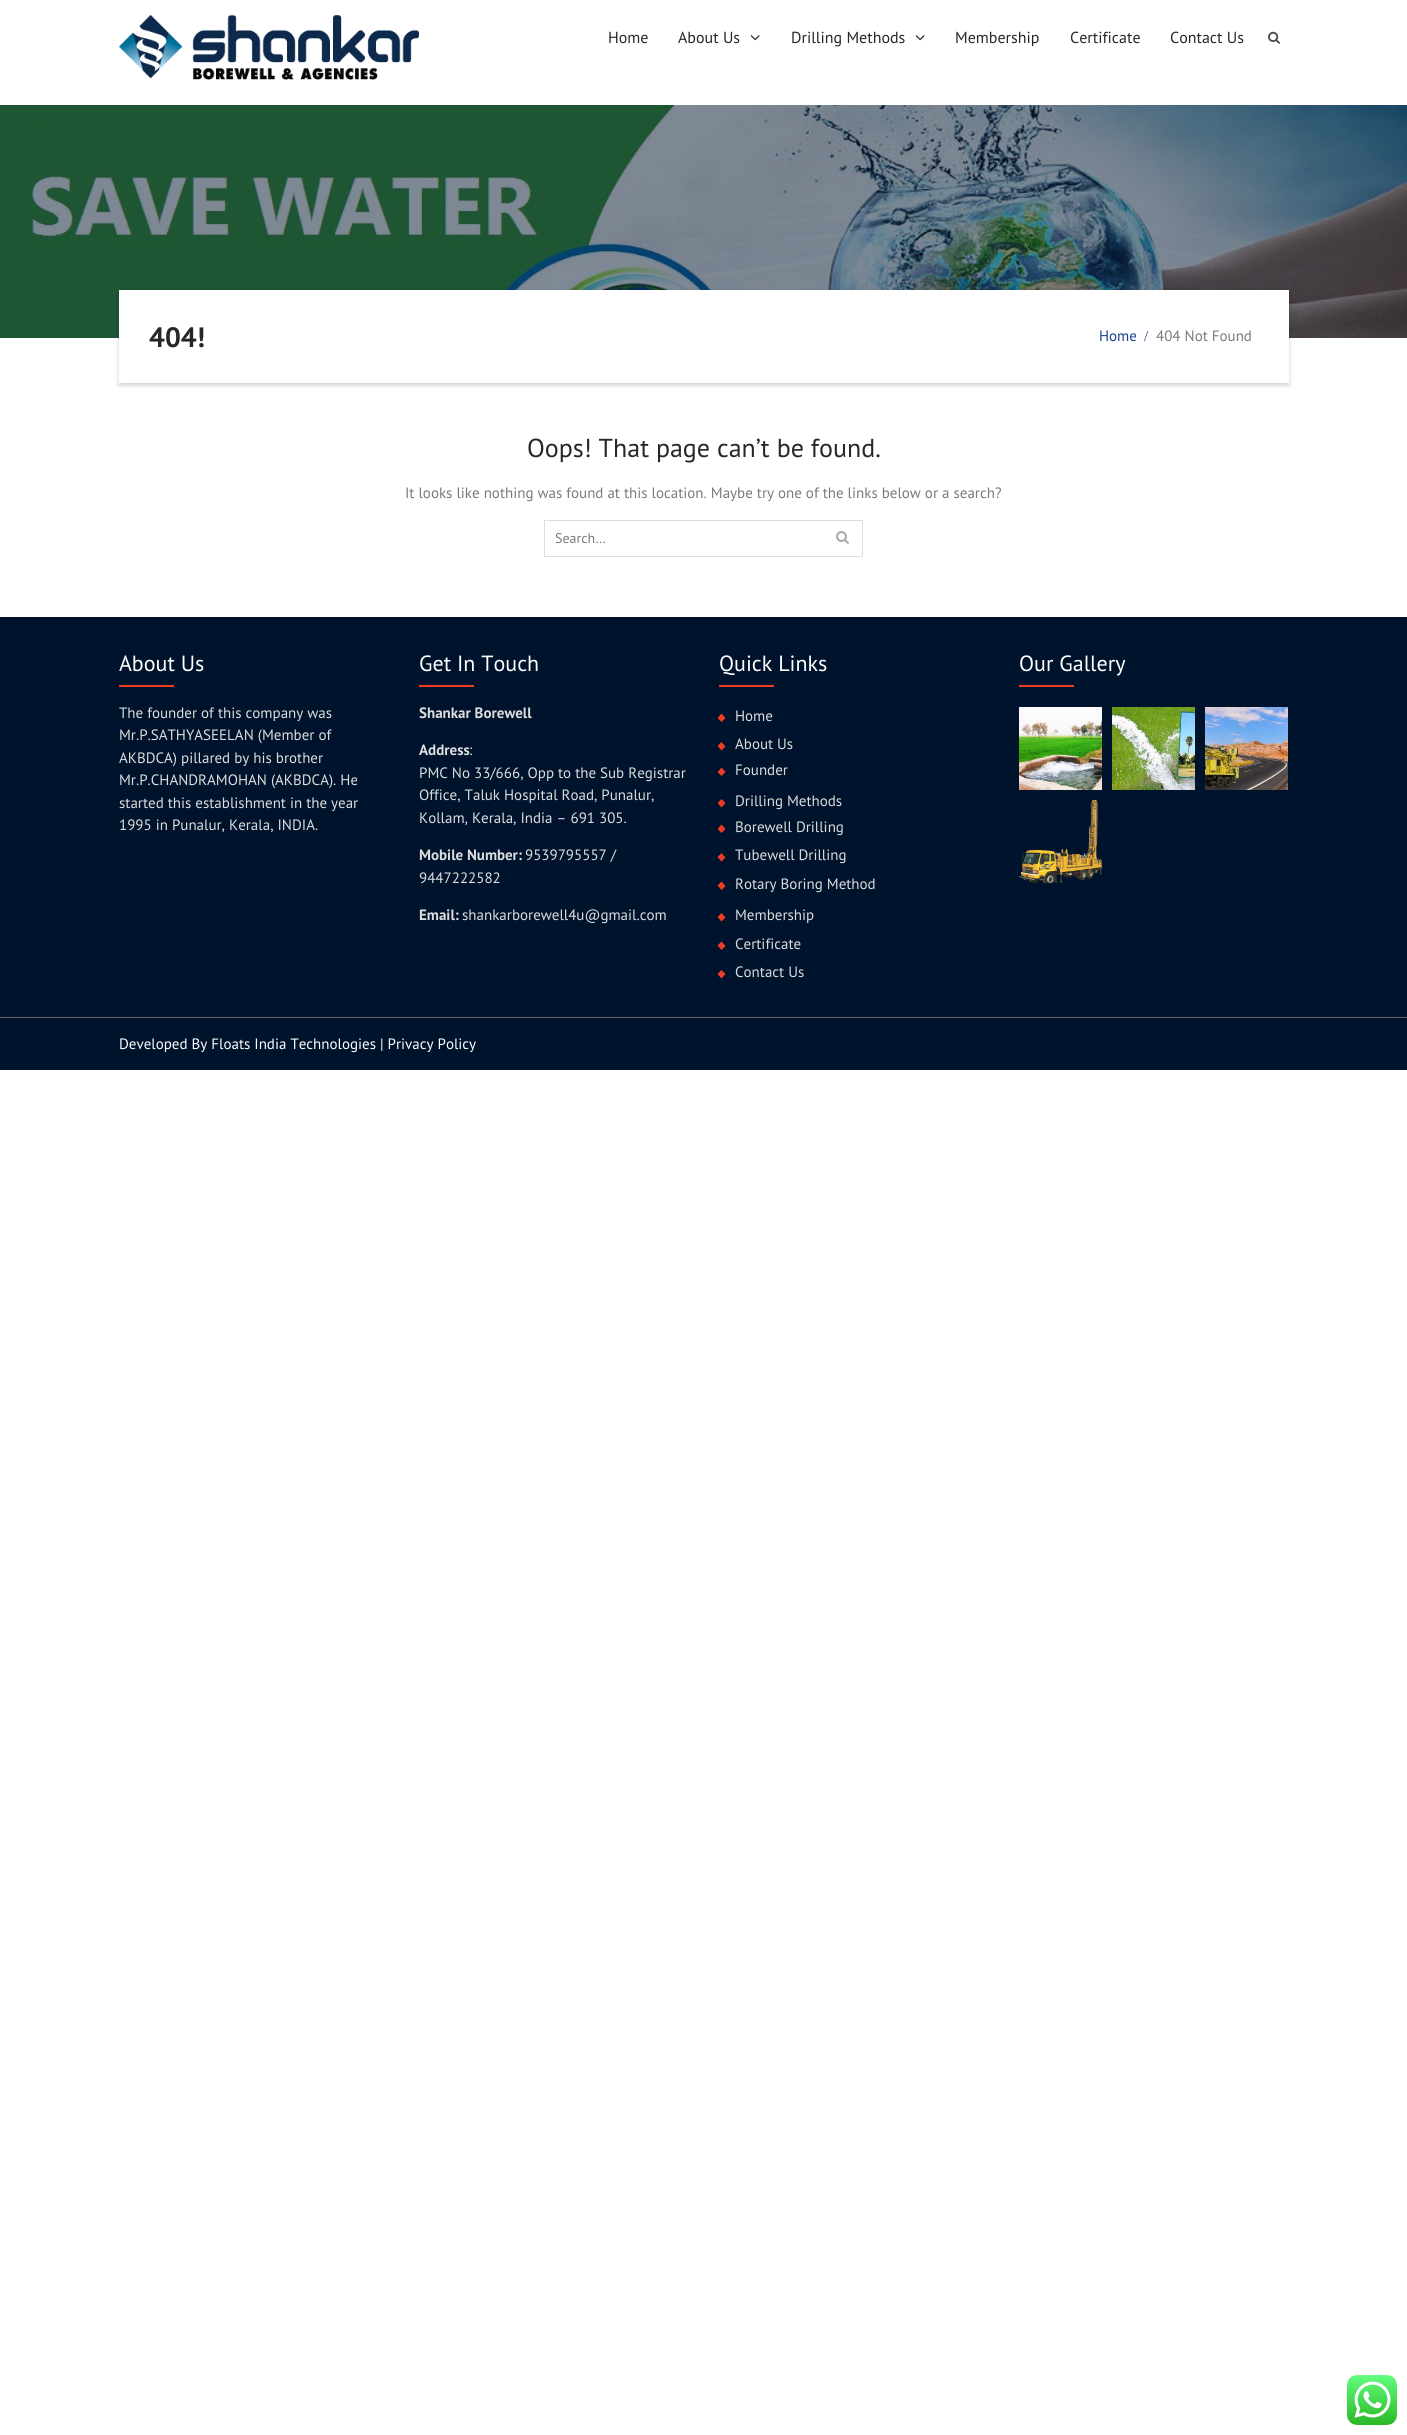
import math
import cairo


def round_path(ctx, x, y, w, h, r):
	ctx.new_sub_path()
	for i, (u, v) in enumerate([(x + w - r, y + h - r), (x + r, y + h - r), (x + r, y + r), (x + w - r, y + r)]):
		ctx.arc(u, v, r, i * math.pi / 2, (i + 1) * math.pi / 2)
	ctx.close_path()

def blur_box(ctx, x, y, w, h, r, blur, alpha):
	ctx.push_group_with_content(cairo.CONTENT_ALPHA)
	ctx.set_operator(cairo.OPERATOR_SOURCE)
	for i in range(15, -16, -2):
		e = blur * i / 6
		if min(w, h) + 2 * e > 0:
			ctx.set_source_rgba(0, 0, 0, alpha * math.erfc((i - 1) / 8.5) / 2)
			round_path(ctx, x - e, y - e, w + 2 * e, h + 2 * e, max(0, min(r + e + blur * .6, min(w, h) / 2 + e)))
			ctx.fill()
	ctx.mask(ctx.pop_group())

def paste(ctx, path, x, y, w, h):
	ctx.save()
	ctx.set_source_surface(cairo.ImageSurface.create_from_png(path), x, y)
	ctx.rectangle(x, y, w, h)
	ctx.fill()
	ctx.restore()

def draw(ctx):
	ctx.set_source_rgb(1, 1, 1)
	ctx.paint()
	paste(ctx, 'media/1.png', 119, 15, 300, 65)
	ctx.select_font_face('PT Sans')
	ctx.set_font_size(16)
	ctx.set_source_rgb(0.153, 0.153, 0.153)
	ctx.move_to(608, 43)
	ctx.show_text('Home')
	ctx.move_to(678, 43)
	ctx.show_text('About Us')
	paste(ctx, 'media/2.png', 750, 35, 10, 6)
	ctx.move_to(791, 43)
	ctx.show_text('Drilling Methods')
	paste(ctx, 'media/2.png', 915, 35, 10, 6)
	for x, y, s in [
		(955, 43, 'Membership'),
		(1070, 43, 'Certificate'),
		(1170, 43, 'Contact Us'),
	]:
		ctx.move_to(x, y)
		ctx.show_text(s)
	paste(ctx, 'media/3.png', 1268, 31, 12, 13)
	paste(ctx, 'media/4.png', 0, 105, 1407, 233)
	ctx.set_source_rgb(0, 0, 0)
	blur_box(ctx, 119, 292, 1170, 93, 0, 2.5, 0.2)
	ctx.set_source_rgb(1, 1, 1)
	ctx.rectangle(119, 290, 1170, 93)
	ctx.fill()
	ctx.select_font_face('PT Sans', cairo.FONT_SLANT_NORMAL, cairo.FONT_WEIGHT_BOLD)
	ctx.set_font_size(28)
	ctx.set_source_rgb(0.153, 0.153, 0.153)
	ctx.move_to(149, 347)
	ctx.show_text('404!')
	ctx.select_font_face('PT Sans')
	ctx.set_font_size(15)
	ctx.set_source_rgb(0.094, 0.259, 0.549)
	ctx.move_to(1099, 341)
	ctx.show_text('Home')
	ctx.select_font_face('Liberation Serif')
	ctx.move_to(1144, 341)
	ctx.show_text('/')
	ctx.select_font_face('PT Sans')
	ctx.set_source_rgb(0.478, 0.478, 0.478)
	ctx.move_to(1156, 341)
	ctx.show_text('404 Not Found')
	ctx.set_font_size(26)
	ctx.set_source_rgb(0.153, 0.153, 0.153)
	ctx.move_to(527, 457)
	ctx.show_text('Oops! That page can’t be found.')
	ctx.set_font_size(15)
	ctx.set_source_rgb(0.478, 0.478, 0.478)
	ctx.move_to(405, 498)
	ctx.show_text('It looks like nothing was found at this location. Maybe try one of the links below or a search?')
	ctx.rectangle(544.5, 520.5, 318, 36)
	ctx.set_source_rgb(0.867, 0.867, 0.867)
	ctx.set_line_width(1)
	ctx.stroke()
	ctx.set_font_size(14)
	ctx.set_source_rgb(0.478, 0.478, 0.478)
	ctx.move_to(555, 543)
	ctx.show_text('Search…')
	paste(ctx, 'media/5.png', 836, 531, 13, 13)
	ctx.set_source_rgb(0, 0.075, 0.173)
	ctx.rectangle(0, 617, 1407, 400)
	ctx.fill()
	ctx.set_font_size(22)
	ctx.set_source_rgb(1, 1, 1)
	ctx.move_to(119, 671)
	ctx.show_text('About Us')
	ctx.set_source_rgb(0.933, 0.231, 0.141)
	ctx.rectangle(119, 685, 55, 2)
	ctx.fill()
	ctx.set_font_size(15)
	ctx.set_source_rgb(0.867, 0.867, 0.867)
	for x, y, s in [
		(119, 718, 'The founder of this company was'),
		(119, 740, 'Mr.P.SATHYASEELAN (Member of'),
		(119, 763, 'AKBDCA) pillared by his brother'),
		(119, 785, 'Mr.P.CHANDRAMOHAN (AKBDCA). He'),
		(119, 808, 'started this establishment in the year'),
		(119, 830, '1995 in Punalur, Kerala, INDIA.'),
	]:
		ctx.move_to(x, y)
		ctx.show_text(s)
	ctx.set_font_size(22)
	ctx.set_source_rgb(1, 1, 1)
	ctx.move_to(419, 671)
	ctx.show_text('Get In Touch')
	ctx.set_source_rgb(0.933, 0.231, 0.141)
	ctx.rectangle(419, 685, 55, 2)
	ctx.fill()
	ctx.select_font_face('PT Sans', cairo.FONT_SLANT_NORMAL, cairo.FONT_WEIGHT_BOLD)
	ctx.set_font_size(15)
	ctx.set_source_rgb(0.867, 0.867, 0.867)
	ctx.move_to(419, 718)
	ctx.show_text('Shankar Borewell')
	ctx.move_to(419, 755)
	ctx.show_text('Address')
	ctx.select_font_face('PT Sans')
	for x, y, s in [
		(469, 755, ':'),
		(419, 778, 'PMC No 33/666, Opp to the Sub Registrar'),
		(419, 800, 'Office, Taluk Hospital Road, Punalur,'),
		(419, 823, 'Kollam, Kerala, India – 691 305.'),
	]:
		ctx.move_to(x, y)
		ctx.show_text(s)
	ctx.select_font_face('PT Sans', cairo.FONT_SLANT_NORMAL, cairo.FONT_WEIGHT_BOLD)
	ctx.move_to(419, 860)
	ctx.show_text('Mobile Number:')
	ctx.select_font_face('PT Sans')
	ctx.move_to(525, 860)
	ctx.show_text('9539795557 /')
	ctx.move_to(419, 883)
	ctx.show_text('9447222582')
	ctx.select_font_face('PT Sans', cairo.FONT_SLANT_NORMAL, cairo.FONT_WEIGHT_BOLD)
	ctx.move_to(419, 920)
	ctx.show_text('Email:')
	ctx.select_font_face('PT Sans')
	ctx.move_to(462, 920)
	ctx.show_text('shankarborewell4u@gmail.com')
	ctx.set_font_size(22)
	ctx.set_source_rgb(1, 1, 1)
	ctx.move_to(719, 671)
	ctx.show_text('Quick Links')
	ctx.set_source_rgb(0.933, 0.231, 0.141)
	ctx.rectangle(719, 685, 55, 2)
	ctx.fill()
	ctx.new_path()
	ctx.move_to(717.5, 718)
	ctx.line_to(721.5, 713.5)
	ctx.line_to(725.5, 718)
	ctx.line_to(721.5, 722)
	ctx.close_path()
	ctx.fill()
	ctx.set_font_size(15)
	ctx.set_source_rgb(0.867, 0.867, 0.867)
	ctx.move_to(735, 721)
	ctx.show_text('Home')
	ctx.set_source_rgb(0.933, 0.231, 0.141)
	ctx.new_path()
	ctx.move_to(717.5, 746)
	ctx.line_to(721.5, 742)
	ctx.line_to(725.5, 746.5)
	ctx.line_to(721.5, 750.5)
	ctx.close_path()
	ctx.fill()
	ctx.set_source_rgb(0.867, 0.867, 0.867)
	ctx.move_to(735, 749)
	ctx.show_text('About Us')
	ctx.set_source_rgb(0.933, 0.231, 0.141)
	ctx.new_path()
	ctx.move_to(717.5, 772)
	ctx.line_to(721.5, 767.5)
	ctx.line_to(725.5, 772)
	ctx.line_to(721.5, 776)
	ctx.close_path()
	ctx.fill()
	ctx.set_source_rgb(0.867, 0.867, 0.867)
	ctx.move_to(735, 775)
	ctx.show_text('Founder')
	ctx.set_source_rgb(0.933, 0.231, 0.141)
	ctx.new_path()
	ctx.move_to(717.5, 803)
	ctx.line_to(721.5, 799)
	ctx.line_to(725.5, 803)
	ctx.line_to(721.5, 807.5)
	ctx.close_path()
	ctx.fill()
	ctx.set_source_rgb(0.867, 0.867, 0.867)
	ctx.move_to(735, 806)
	ctx.show_text('Drilling Methods')
	ctx.set_source_rgb(0.933, 0.231, 0.141)
	ctx.new_path()
	ctx.move_to(717.5, 829)
	ctx.line_to(721.5, 824.5)
	ctx.line_to(725.5, 829)
	ctx.line_to(721.5, 833)
	ctx.close_path()
	ctx.fill()
	ctx.set_source_rgb(0.867, 0.867, 0.867)
	ctx.move_to(735, 832)
	ctx.show_text('Borewell Drilling')
	ctx.set_source_rgb(0.933, 0.231, 0.141)
	ctx.new_path()
	ctx.move_to(717.5, 857)
	ctx.line_to(721.5, 853)
	ctx.line_to(725.5, 857.5)
	ctx.line_to(721.5, 861.5)
	ctx.close_path()
	ctx.fill()
	ctx.set_source_rgb(0.867, 0.867, 0.867)
	ctx.move_to(735, 860)
	ctx.show_text('Tubewell Drilling')
	ctx.set_source_rgb(0.933, 0.231, 0.141)
	ctx.new_path()
	ctx.move_to(717.5, 885.5)
	ctx.line_to(721.5, 881.5)
	ctx.line_to(725.5, 886)
	ctx.line_to(721.5, 890)
	ctx.close_path()
	ctx.fill()
	ctx.set_source_rgb(0.867, 0.867, 0.867)
	ctx.move_to(735, 889)
	ctx.show_text('Rotary Boring Method')
	ctx.set_source_rgb(0.933, 0.231, 0.141)
	ctx.new_path()
	ctx.move_to(717.5, 917)
	ctx.line_to(721.5, 913)
	ctx.line_to(725.5, 917.5)
	ctx.line_to(721.5, 921.5)
	ctx.close_path()
	ctx.fill()
	ctx.set_source_rgb(0.867, 0.867, 0.867)
	ctx.move_to(735, 920)
	ctx.show_text('Membership')
	ctx.set_source_rgb(0.933, 0.231, 0.141)
	ctx.new_path()
	ctx.move_to(717.5, 945.5)
	ctx.line_to(721.5, 941.5)
	ctx.line_to(725.5, 946)
	ctx.line_to(721.5, 950)
	ctx.close_path()
	ctx.fill()
	ctx.set_source_rgb(0.867, 0.867, 0.867)
	ctx.move_to(735, 949)
	ctx.show_text('Certificate')
	ctx.set_source_rgb(0.933, 0.231, 0.141)
	ctx.new_path()
	ctx.move_to(717.5, 974)
	ctx.line_to(721.5, 970)
	ctx.line_to(725.5, 974)
	ctx.line_to(721.5, 978.5)
	ctx.close_path()
	ctx.fill()
	ctx.set_source_rgb(0.867, 0.867, 0.867)
	ctx.move_to(735, 977)
	ctx.show_text('Contact Us')
	ctx.set_font_size(22)
	ctx.set_source_rgb(1, 1, 1)
	ctx.move_to(1019, 671)
	ctx.show_text('Our Gallery')
	ctx.set_source_rgb(0.933, 0.231, 0.141)
	ctx.rectangle(1019, 685, 55, 2)
	ctx.fill()
	paste(ctx, 'media/6.png', 1019, 707, 83, 83)
	paste(ctx, 'media/7.png', 1112, 707, 83, 83)
	paste(ctx, 'media/8.png', 1205, 707, 83, 83)
	paste(ctx, 'media/9.png', 1019, 800, 83, 83)
	ctx.set_source_rgb(0, 0.075, 0.173)
	ctx.rectangle(0, 1018, 1407, 52)
	ctx.fill()
	ctx.set_source_rgb(0.4, 0.4, 0.4)
	ctx.rectangle(0, 1017, 1407, 1)
	ctx.fill()
	ctx.set_font_size(15)
	ctx.set_source_rgb(1, 1, 1)
	ctx.move_to(119, 1049)
	ctx.show_text('Developed By Floats India Technologies | Privacy Policy')
	paste(ctx, 'media/10.png', 1347, 2375, 50, 50)


surface = cairo.ImageSurface(cairo.FORMAT_RGB24, 1407, 2435)
ctx = cairo.Context(surface)
options = cairo.FontOptions()
options.set_hint_metrics(cairo.HINT_METRICS_OFF)
options.set_hint_style(cairo.HINT_STYLE_NONE)
ctx.set_font_options(options)
ctx.set_miter_limit(4)
draw(ctx)
surface.write_to_png('image.png')
